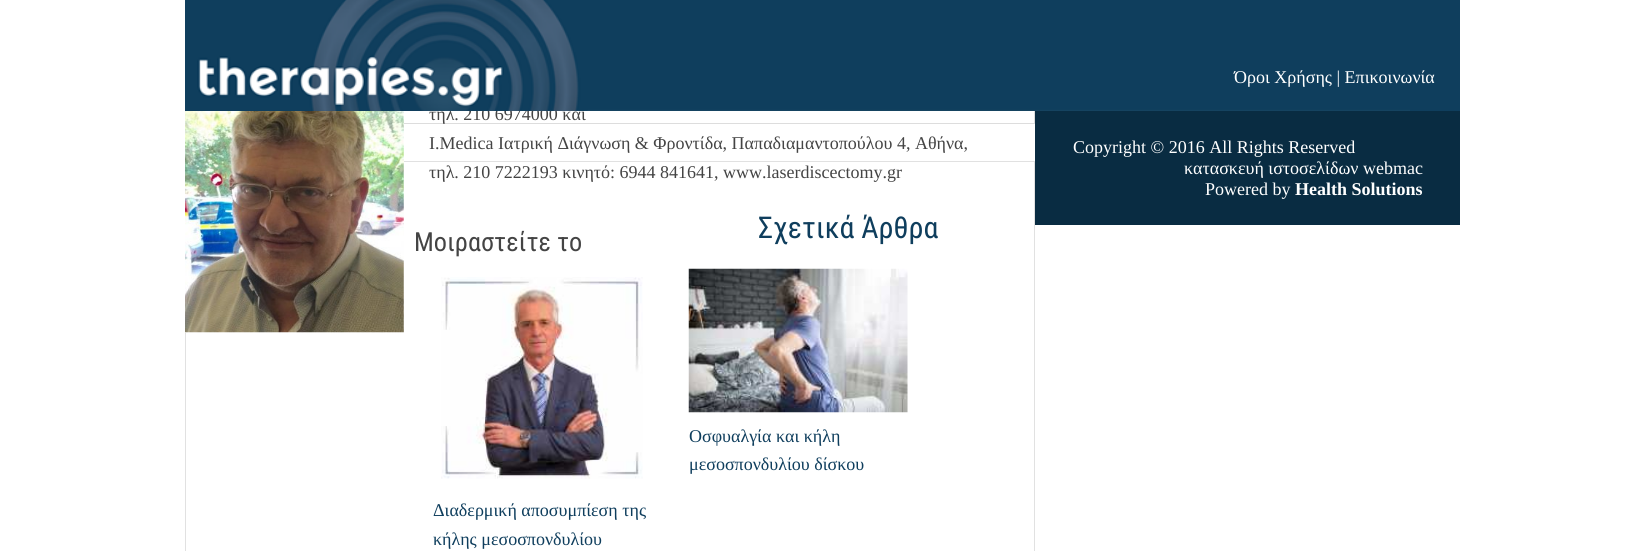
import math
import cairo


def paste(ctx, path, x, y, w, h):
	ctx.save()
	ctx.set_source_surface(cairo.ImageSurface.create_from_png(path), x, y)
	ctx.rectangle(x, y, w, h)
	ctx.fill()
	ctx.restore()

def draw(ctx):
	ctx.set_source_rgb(1, 1, 1)
	ctx.paint()
	ctx.rectangle(185.5, 71.5, 849, 52)
	ctx.set_source_rgb(0.867, 0.867, 0.867)
	ctx.set_line_width(1)
	ctx.stroke()
	ctx.select_font_face('Liberation Serif')
	ctx.set_font_size(18)
	ctx.set_source_rgb(0.267, 0.267, 0.267)
	ctx.move_to(429, 120)
	ctx.show_text('τηλ. 210 6974000 και')
	ctx.set_source_rgb(0.059, 0.243, 0.365)
	ctx.rectangle(185, 0, 1275, 111)
	ctx.fill()
	paste(ctx, 'media/1.png', 197, 0, 1213, 111)
	ctx.set_source_rgb(1, 1, 1)
	ctx.move_to(1234, 83)
	ctx.show_text('Όροι Χρήσης | Επικοινωνία')
	ctx.rectangle(185.5, 161.5, 849, 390)
	ctx.set_source_rgb(0.882, 0.882, 0.882)
	ctx.stroke()
	ctx.set_source_rgb(1, 1, 1)
	ctx.rectangle(185, 111, 219, 222)
	ctx.fill()
	paste(ctx, 'media/2.png', 185, 111, 219, 222)
	ctx.set_source_rgb(0.267, 0.267, 0.267)
	ctx.move_to(429, 149)
	ctx.show_text('Ι.Medica Ιατρική Διάγνωση & Φροντίδα, Παπαδιαμαντοπούλου 4, Αθήνα,')
	ctx.move_to(429, 178)
	ctx.show_text('τηλ. 210 7222193 κινητό: 6944 841641, www.laserdiscectomy.gr')
	ctx.select_font_face('Roboto Condensed')
	ctx.set_font_size(30)
	ctx.set_source_rgb(0.059, 0.243, 0.365)
	ctx.move_to(758, 238)
	ctx.show_text('Σχετικά Άρθρα')
	paste(ctx, 'media/3.png', 688, 268, 220, 145)
	ctx.select_font_face('Liberation Serif')
	ctx.set_font_size(18)
	ctx.move_to(689, 442)
	ctx.show_text('Οσφυαλγία και κήλη')
	ctx.move_to(689, 470)
	ctx.show_text('μεσοσπονδυλίου δίσκου')
	paste(ctx, 'media/4.png', 441, 277, 202, 202)
	ctx.move_to(433, 516)
	ctx.show_text('Διαδερμική αποσυμπίεση της')
	ctx.move_to(433, 545)
	ctx.show_text('κήλης μεσοσπονδυλίου')
	ctx.select_font_face('Roboto Condensed')
	ctx.set_font_size(26.25)
	ctx.set_source_rgb(0.267, 0.267, 0.267)
	ctx.move_to(414, 251)
	ctx.show_text('Μοιραστείτε το')
	ctx.set_source_rgb(0.039, 0.173, 0.259)
	ctx.rectangle(1035, 111, 425, 114)
	ctx.fill()
	ctx.select_font_face('Liberation Serif')
	ctx.set_font_size(18)
	ctx.set_source_rgb(1, 1, 1)
	for x, y, s in [
		(1073, 153, 'Copyright © 2016 All Rights Reserved'),
		(1184, 174, 'κατασκευή ιστοσελίδων webmac'),
		(1205, 195, 'Powered by'),
	]:
		ctx.move_to(x, y)
		ctx.show_text(s)
	ctx.select_font_face('Liberation Serif', cairo.FONT_SLANT_NORMAL, cairo.FONT_WEIGHT_BOLD)
	ctx.move_to(1295, 195)
	ctx.show_text('Health Solutions')


surface = cairo.ImageSurface(cairo.FORMAT_RGB24, 1645, 551)
ctx = cairo.Context(surface)
options = cairo.FontOptions()
options.set_hint_metrics(cairo.HINT_METRICS_OFF)
options.set_hint_style(cairo.HINT_STYLE_NONE)
ctx.set_font_options(options)
ctx.set_miter_limit(4)
draw(ctx)
surface.write_to_png('image.png')
